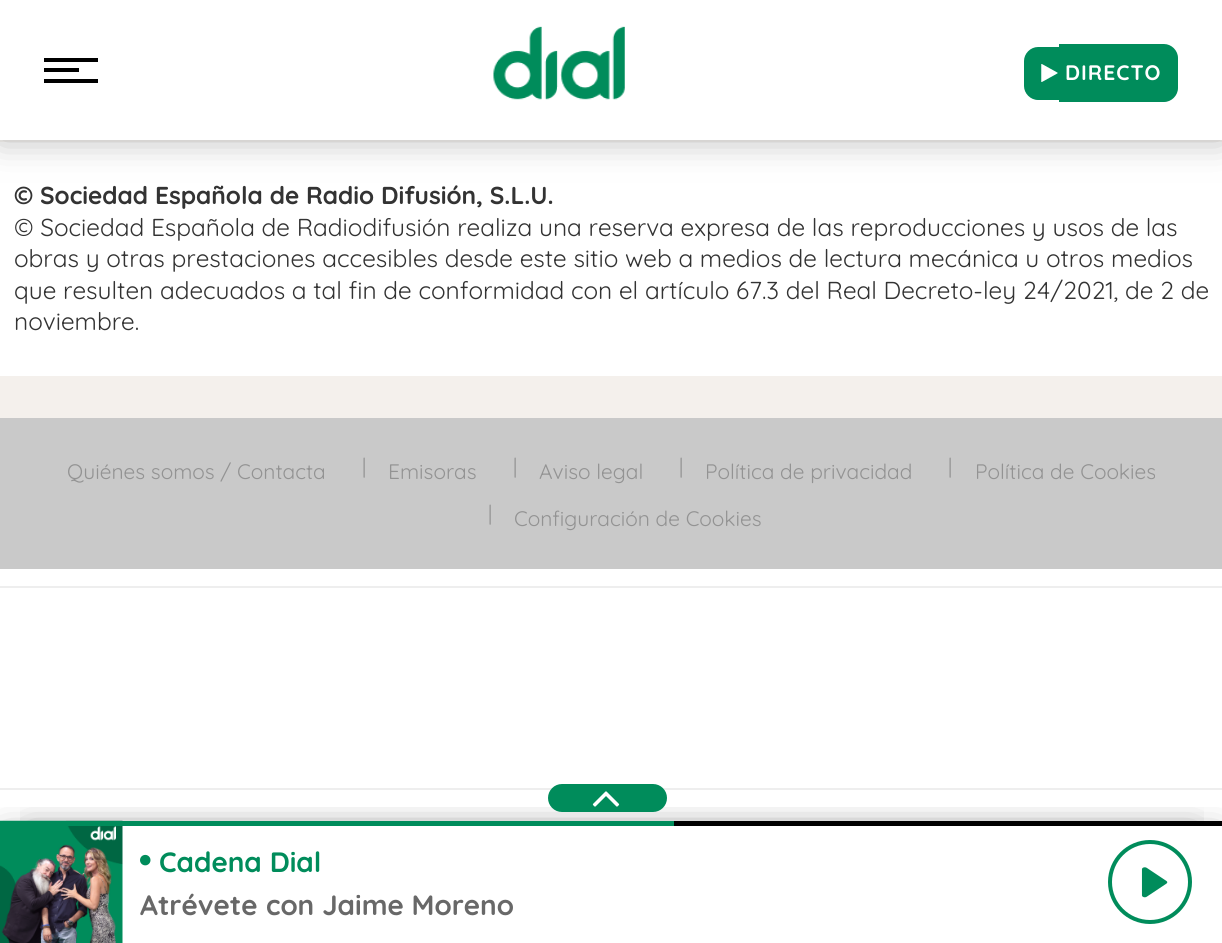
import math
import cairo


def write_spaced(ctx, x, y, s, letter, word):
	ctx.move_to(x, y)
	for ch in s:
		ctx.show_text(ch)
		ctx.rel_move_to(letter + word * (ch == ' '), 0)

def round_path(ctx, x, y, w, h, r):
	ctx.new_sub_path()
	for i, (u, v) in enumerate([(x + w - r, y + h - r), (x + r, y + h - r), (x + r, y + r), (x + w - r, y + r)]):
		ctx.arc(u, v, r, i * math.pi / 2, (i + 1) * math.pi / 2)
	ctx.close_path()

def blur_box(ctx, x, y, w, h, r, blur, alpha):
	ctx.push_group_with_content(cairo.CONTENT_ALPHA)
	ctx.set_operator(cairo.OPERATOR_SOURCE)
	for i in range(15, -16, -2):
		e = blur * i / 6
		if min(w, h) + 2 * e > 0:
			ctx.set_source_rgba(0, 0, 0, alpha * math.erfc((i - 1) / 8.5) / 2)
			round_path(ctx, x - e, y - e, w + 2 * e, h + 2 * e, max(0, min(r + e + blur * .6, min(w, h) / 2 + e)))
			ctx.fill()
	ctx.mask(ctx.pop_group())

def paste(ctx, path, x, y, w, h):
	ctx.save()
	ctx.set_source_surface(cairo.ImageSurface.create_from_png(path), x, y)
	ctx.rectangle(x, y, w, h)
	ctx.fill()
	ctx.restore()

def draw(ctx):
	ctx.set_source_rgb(0.957, 0.941, 0.922)
	ctx.paint()
	ctx.set_source_rgb(1, 1, 1)
	ctx.rectangle(0, 142, 1222, 234)
	ctx.fill()
	ctx.set_source_rgb(0.725, 0.725, 0.725)
	blur_box(ctx, 0, 0, 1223, 140, 0, 17.5, 1)
	ctx.set_source_rgb(1, 1, 1)
	ctx.rectangle(0, 0, 1222, 140)
	ctx.fill()
	ctx.set_source_rgb(0, 0, 0)
	ctx.rectangle(44, 68, 35, 4)
	ctx.rectangle(44, 58, 54, 4)
	ctx.rectangle(44, 79, 54, 4)
	ctx.fill()
	paste(ctx, 'media/1.png', 493, 26, 132, 74)
	ctx.set_source_rgb(0, 0.549, 0.357)
	ctx.new_path()
	ctx.move_to(1038, 47)
	ctx.line_to(1059, 47)
	ctx.line_to(1059, 100)
	ctx.line_to(1038, 100)
	ctx.curve_to(1030.5, 100, 1024, 93.5, 1024, 86)
	ctx.line_to(1024, 61)
	ctx.curve_to(1024, 53.5, 1030.5, 47, 1038, 47)
	ctx.close_path()
	ctx.fill()
	ctx.new_path()
	ctx.move_to(1059, 44)
	ctx.line_to(1164, 44)
	ctx.curve_to(1171.5, 44, 1178, 50.5, 1178, 58)
	ctx.line_to(1178, 88)
	ctx.curve_to(1178, 95.5, 1171.5, 102, 1164, 102)
	ctx.line_to(1059, 102)
	ctx.close_path()
	ctx.fill()
	paste(ctx, 'media/2.png', 1041, 64, 17, 18)
	ctx.select_font_face('Quicksand Light')
	ctx.set_font_size(21)
	ctx.set_source_rgb(1, 1, 1)
	write_spaced(ctx, 1065, 80, 'DIRECTO', 1, 0)
	ctx.set_font_size(24.5)
	ctx.set_source_rgb(0.2, 0.2, 0.2)
	ctx.move_to(14, 204)
	ctx.show_text('© Sociedad Española de Radio Difusión, S.L.U.')
	ctx.select_font_face('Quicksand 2 Light')
	for x, y, s in [
		(14, 236, '© Sociedad Española de Radiodifusión realiza una reserva expresa de las reproducciones y usos de las'),
		(14, 267, 'obras y otras prestaciones accesibles desde este sitio web a medios de lectura mecánica u otros medios'),
		(14, 299, 'que resulten adecuados a tal fin de conformidad con el artículo 67.3 del Real Decreto-ley 24/2021, de 2 de'),
		(14, 330, 'noviembre.'),
	]:
		ctx.move_to(x, y)
		ctx.show_text(s)
	ctx.set_source_rgb(1, 1, 1)
	ctx.rectangle(0, 569, 1222, 374)
	ctx.fill()
	ctx.set_source_rgb(0.788, 0.788, 0.788)
	ctx.rectangle(0, 418, 1222, 151)
	ctx.fill()
	ctx.set_font_size(21)
	ctx.set_source_rgb(0.576, 0.576, 0.576)
	for x, y, s in [
		(67, 479, 'Quiénes somos / Contacta'),
		(362, 474, '|'),
		(388, 479, 'Emisoras'),
		(513, 474, '|'),
		(539, 479, 'Aviso legal'),
		(679, 474, '|'),
		(705, 479, 'Política de privacidad'),
		(948, 474, '|'),
		(975, 479, 'Política de Cookies'),
		(488, 521, '|'),
		(514, 526, 'Configuración de Cookies'),
	]:
		ctx.move_to(x, y)
		ctx.show_text(s)
	ctx.set_source_rgb(0.933, 0.933, 0.933)
	ctx.rectangle(0, 586, 1222, 2)
	ctx.fill()
	ctx.rectangle(0, 788, 1222, 2)
	ctx.fill()
	ctx.save()
	ctx.rectangle(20, 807, 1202, 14)
	ctx.clip()
	ctx.set_source_rgb(0, 0, 0)
	blur_box(ctx, 30, 838, 1188, 88, 0, 17.5, 0.5)
	ctx.restore()
	ctx.save()
	ctx.rectangle(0, 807, 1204, 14)
	ctx.clip()
	ctx.set_source_rgb(0, 0, 0)
	blur_box(ctx, 5, 838, 1189, 88, 0, 17.5, 0.5)
	ctx.restore()
	ctx.set_source_rgb(0, 0, 0)
	ctx.rectangle(674, 821, 548, 5)
	ctx.fill()
	paste(ctx, 'media/4.png', 0, 820, 123, 123)
	ctx.set_source_rgb(0, 0.549, 0.357)
	ctx.rectangle(66, 821, 608, 5)
	ctx.fill()
	round_path(ctx, 548, 784, 119, 28, 14)
	ctx.fill()
	paste(ctx, 'media/3.png', 592, 791, 28, 16)
	paste(ctx, 'media/5.png', 140, 854, 11, 12)
	ctx.select_font_face('Quicksand Light')
	ctx.set_font_size(28)
	ctx.move_to(159, 872)
	ctx.show_text('Cadena Dial')
	ctx.set_source_rgb(0.408, 0.408, 0.408)
	ctx.move_to(140, 915)
	ctx.show_text('Atrévete')
	ctx.move_to(266, 915)
	ctx.show_text('con Jaime Moreno')
	ctx.new_path()
	ctx.arc(1150, 882, 40, 0, 2 * math.pi)
	ctx.set_source_rgb(0, 0.549, 0.357)
	ctx.set_line_width(4)
	ctx.stroke()
	paste(ctx, 'media/6.png', 1141, 867, 27, 31)


surface = cairo.ImageSurface(cairo.FORMAT_RGB24, 1222, 943)
ctx = cairo.Context(surface)
options = cairo.FontOptions()
options.set_hint_metrics(cairo.HINT_METRICS_OFF)
options.set_hint_style(cairo.HINT_STYLE_NONE)
ctx.set_font_options(options)
ctx.set_miter_limit(4)
draw(ctx)
surface.write_to_png('image.png')
